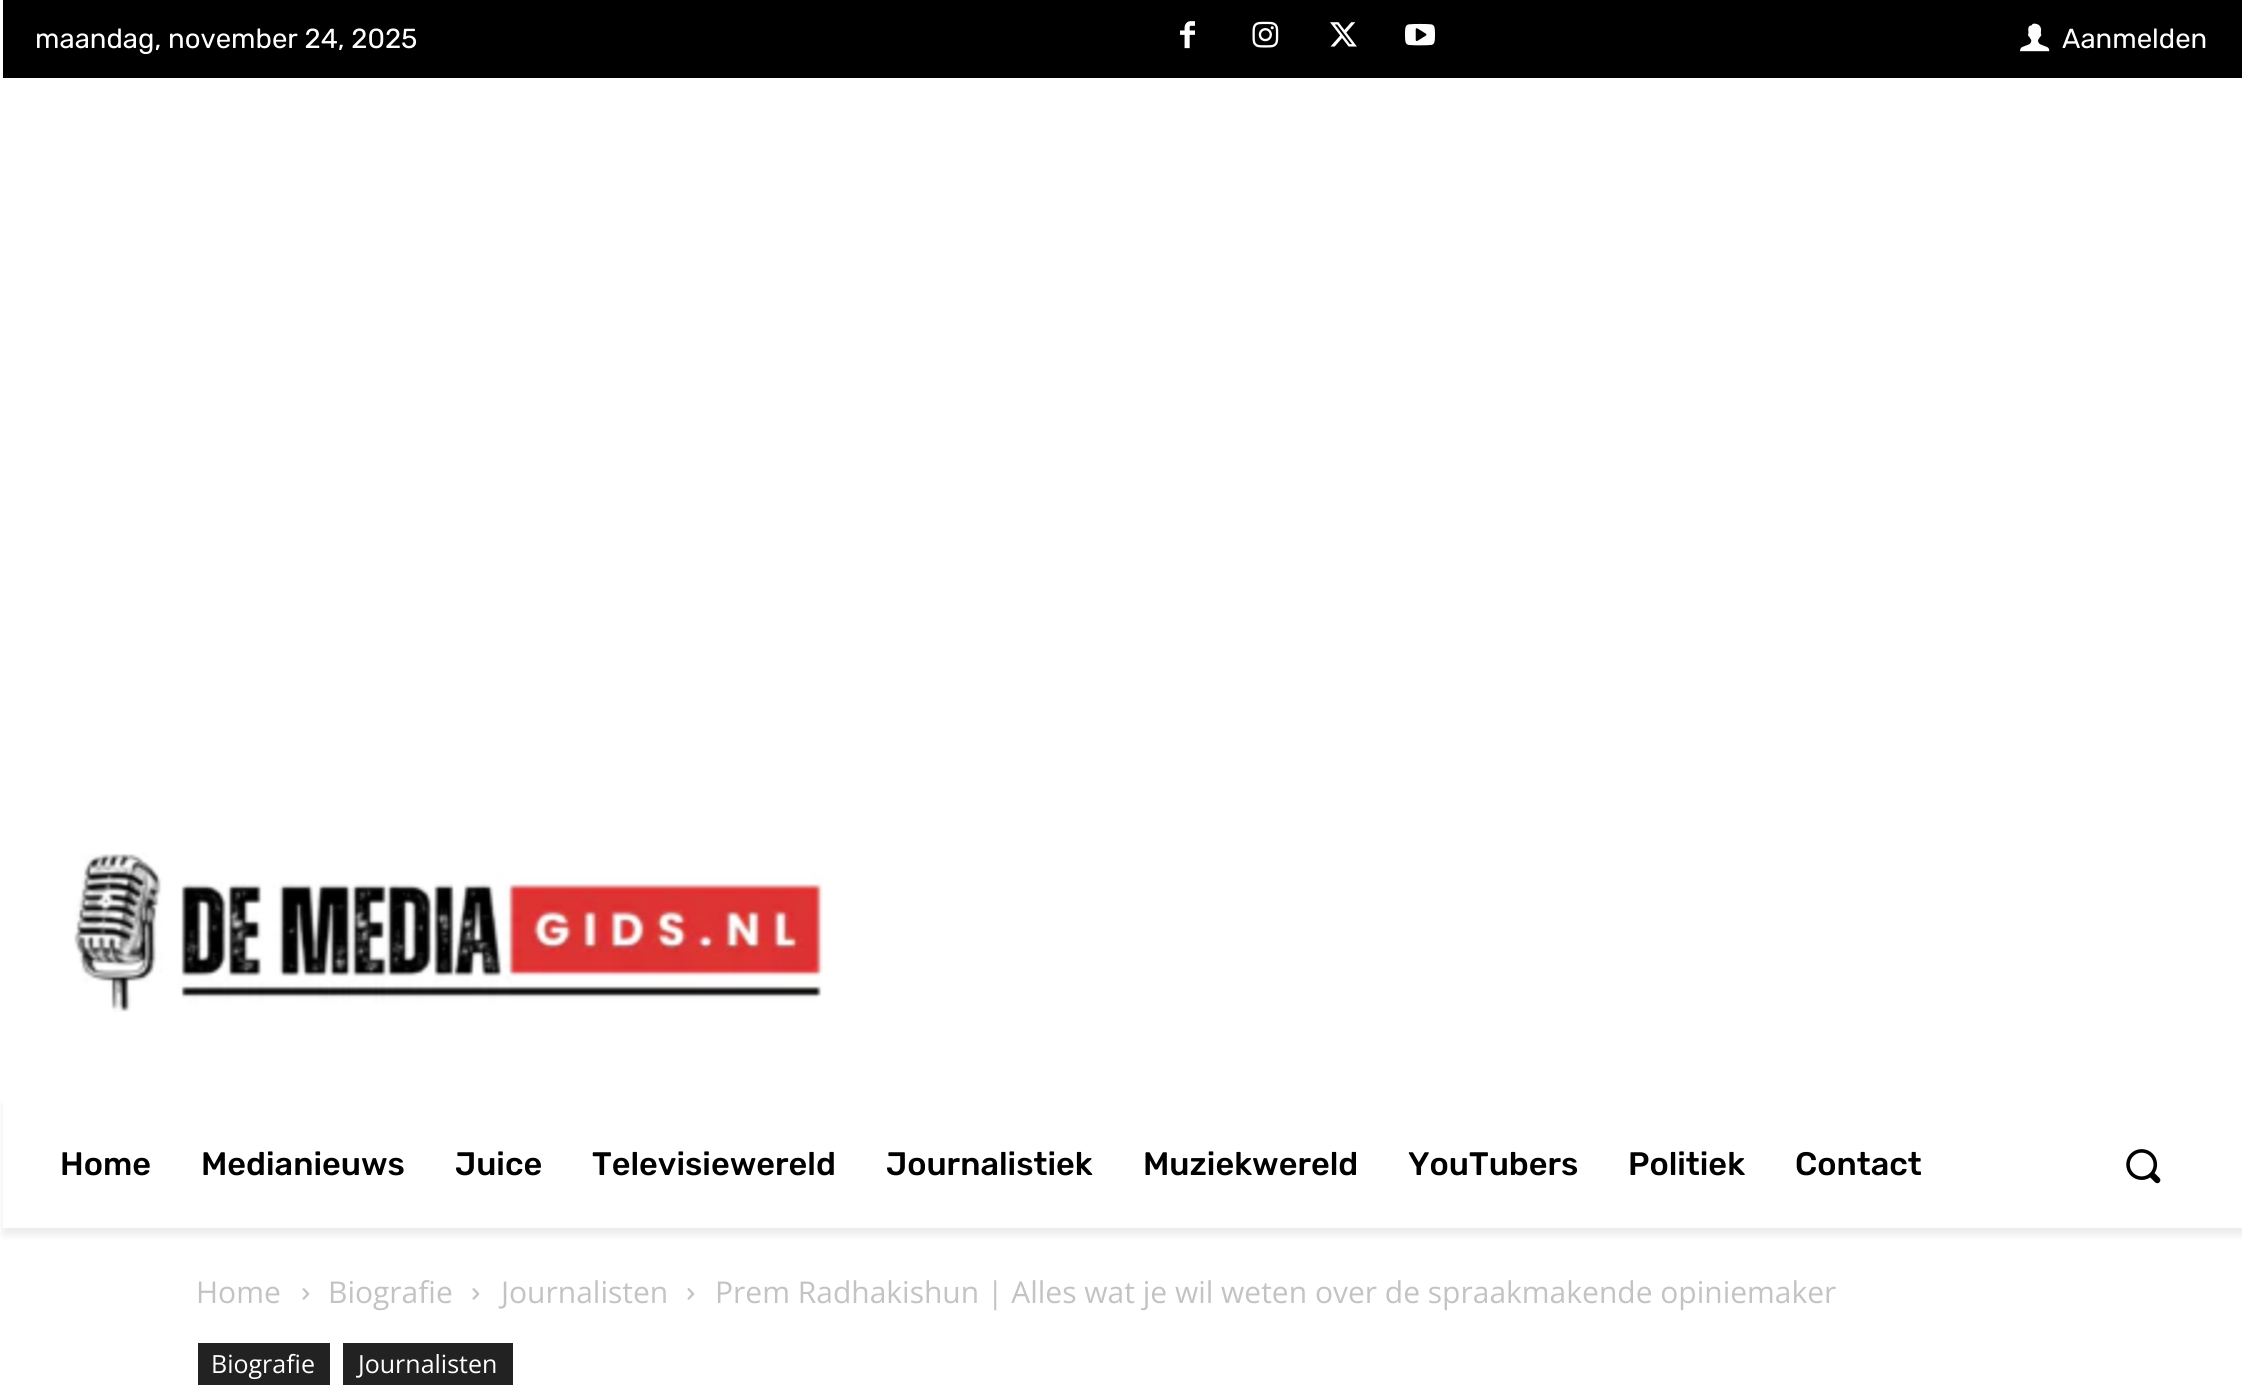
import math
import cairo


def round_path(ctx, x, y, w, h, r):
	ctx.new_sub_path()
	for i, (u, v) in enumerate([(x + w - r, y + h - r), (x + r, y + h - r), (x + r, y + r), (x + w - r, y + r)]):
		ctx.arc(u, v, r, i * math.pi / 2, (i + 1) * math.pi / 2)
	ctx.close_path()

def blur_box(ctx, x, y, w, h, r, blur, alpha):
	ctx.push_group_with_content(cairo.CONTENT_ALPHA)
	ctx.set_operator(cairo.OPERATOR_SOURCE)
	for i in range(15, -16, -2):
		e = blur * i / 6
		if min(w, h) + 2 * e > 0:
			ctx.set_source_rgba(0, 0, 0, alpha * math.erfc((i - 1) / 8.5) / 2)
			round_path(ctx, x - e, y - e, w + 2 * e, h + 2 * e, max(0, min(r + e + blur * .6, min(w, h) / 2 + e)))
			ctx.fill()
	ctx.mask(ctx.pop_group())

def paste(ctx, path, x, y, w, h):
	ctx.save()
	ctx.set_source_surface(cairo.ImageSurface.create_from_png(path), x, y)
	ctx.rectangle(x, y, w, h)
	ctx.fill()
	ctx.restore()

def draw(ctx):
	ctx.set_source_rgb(1, 1, 1)
	ctx.paint()
	ctx.set_source_rgb(0, 0, 0)
	ctx.rectangle(3, 0, 2239, 78)
	ctx.fill()
	ctx.select_font_face('Rubik')
	ctx.set_font_size(27.5)
	ctx.set_source_rgb(1, 1, 1)
	ctx.move_to(35, 48)
	ctx.show_text('maandag, november 24, 2025')
	paste(ctx, 'media/1.png', 1180, 21, 15, 28)
	paste(ctx, 'media/2.png', 1252, 21, 27, 27)
	paste(ctx, 'media/3.png', 1330, 22, 27, 25)
	paste(ctx, 'media/4.png', 1405, 23, 30, 23)
	paste(ctx, 'media/5.png', 2020, 23, 30, 29)
	ctx.move_to(2062, 48)
	ctx.show_text('Aanmelden')
	paste(ctx, 'media/6.png', 74, 853, 749, 159)
	ctx.save()
	ctx.set_fill_rule(cairo.FILL_RULE_EVEN_ODD)
	ctx.new_path()
	ctx.move_to(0, 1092)
	ctx.line_to(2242, 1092)
	ctx.line_to(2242, 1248)
	ctx.line_to(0, 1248)
	ctx.close_path()
	ctx.move_to(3, 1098)
	ctx.line_to(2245, 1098)
	ctx.line_to(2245, 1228)
	ctx.line_to(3, 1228)
	ctx.close_path()
	ctx.clip()
	ctx.set_source_rgb(0, 0, 0)
	blur_box(ctx, 3, 1105, 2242, 130, 0, 4, 0.08)
	ctx.restore()
	ctx.select_font_face('Rubik Medium')
	ctx.set_font_size(32.5)
	ctx.set_source_rgb(0, 0, 0)
	for x, y, s in [
		(60, 1175, 'Home'),
		(201, 1175, 'Medianieuws'),
		(455, 1175, 'Juice'),
		(592, 1175, 'Televisiewereld'),
		(886, 1175, 'Journalistiek'),
		(1143, 1175, 'Muziekwereld'),
		(1408, 1175, 'YouTubers'),
		(1628, 1175, 'Politiek'),
		(1795, 1175, 'Contact'),
	]:
		ctx.move_to(x, y)
		ctx.show_text(s)
	paste(ctx, 'media/7.png', 2126, 1149, 35, 35)
	ctx.select_font_face('Open Sans')
	ctx.set_font_size(30)
	ctx.set_source_rgb(0.765, 0.765, 0.765)
	ctx.move_to(196, 1303)
	ctx.show_text('Home')
	paste(ctx, 'media/8.png', 302, 1288, 8, 12)
	ctx.move_to(328, 1303)
	ctx.show_text('Biografie')
	paste(ctx, 'media/8.png', 472, 1288, 8, 12)
	ctx.move_to(501, 1303)
	ctx.show_text('Journalisten')
	paste(ctx, 'media/8.png', 687, 1288, 8, 12)
	ctx.move_to(715, 1303)
	ctx.show_text('Prem Radhakishun | Alles wat je wil weten over de spraakmakende opiniemaker')
	ctx.set_source_rgb(0.133, 0.133, 0.133)
	ctx.rectangle(198, 1343, 132, 42)
	ctx.fill()
	ctx.set_font_size(25)
	ctx.set_source_rgb(1, 1, 1)
	ctx.move_to(211, 1373)
	ctx.show_text('Biografie')
	ctx.set_source_rgb(0.133, 0.133, 0.133)
	ctx.rectangle(343, 1343, 170, 42)
	ctx.fill()
	ctx.set_source_rgb(1, 1, 1)
	ctx.move_to(358, 1373)
	ctx.show_text('Journalisten')


surface = cairo.ImageSurface(cairo.FORMAT_RGB24, 2242, 1390)
ctx = cairo.Context(surface)
options = cairo.FontOptions()
options.set_hint_metrics(cairo.HINT_METRICS_OFF)
options.set_hint_style(cairo.HINT_STYLE_NONE)
ctx.set_font_options(options)
ctx.set_miter_limit(4)
draw(ctx)
surface.write_to_png('image.png')
